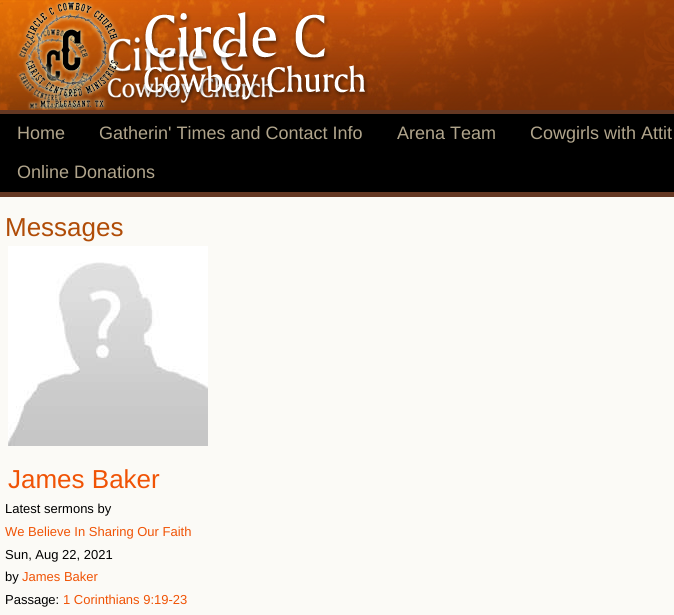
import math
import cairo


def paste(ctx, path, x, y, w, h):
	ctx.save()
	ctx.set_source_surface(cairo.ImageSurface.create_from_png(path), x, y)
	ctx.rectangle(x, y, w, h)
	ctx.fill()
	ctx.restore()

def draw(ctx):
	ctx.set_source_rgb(0.984, 0.98, 0.961)
	ctx.paint()
	paste(ctx, 'media/1.png', 0, 0, 674, 110)
	paste(ctx, 'media/2.png', 0, 0, 674, 110)
	paste(ctx, 'media/4.png', 17, 28, 258, 82)
	paste(ctx, 'media/3.png', 23, 0, 345, 110)
	ctx.set_source_rgb(0, 0, 0)
	ctx.rectangle(0, 114, 674, 78)
	ctx.fill()
	ctx.set_source_rgb(0.392, 0.22, 0.137)
	ctx.rectangle(0, 110, 674, 4)
	ctx.rectangle(0, 192, 674, 5)
	ctx.fill()
	ctx.select_font_face('Liberation Sans')
	ctx.set_font_size(18)
	ctx.set_source_rgb(0.694, 0.647, 0.549)
	for x, y, s in [
		(17, 139, 'Home'),
		(99, 139, 'Gatherin\' Times and Contact Info'),
		(397, 139, 'Arena Team'),
		(530, 139, 'Cowgirls with Attit'),
		(17, 178, 'Online Donations'),
	]:
		ctx.move_to(x, y)
		ctx.show_text(s)
	ctx.set_font_size(26)
	ctx.set_source_rgb(0.69, 0.298, 0.031)
	ctx.move_to(5, 236)
	ctx.show_text('Messages')
	paste(ctx, 'media/5.png', 8, 246, 200, 200)
	ctx.set_source_rgb(0.941, 0.325, 0.02)
	ctx.move_to(8, 488)
	ctx.show_text('James Baker')
	ctx.set_font_size(13)
	ctx.set_source_rgb(0, 0, 0)
	ctx.move_to(5, 513)
	ctx.show_text('Latest sermons by')
	ctx.set_source_rgb(0.941, 0.325, 0.02)
	ctx.move_to(5, 536)
	ctx.show_text('We Believe In Sharing Our Faith')
	ctx.set_source_rgb(0, 0, 0)
	ctx.move_to(5, 559)
	ctx.show_text('Sun, Aug 22, 2021')
	ctx.move_to(5, 581)
	ctx.show_text('by')
	ctx.set_source_rgb(0.941, 0.325, 0.02)
	ctx.move_to(22, 581)
	ctx.show_text('James Baker')
	ctx.set_source_rgb(0, 0, 0)
	ctx.move_to(5, 604)
	ctx.show_text('Passage:')
	ctx.set_source_rgb(0.941, 0.325, 0.02)
	ctx.move_to(63, 604)
	ctx.show_text('1 Corinthians 9:19-23')


surface = cairo.ImageSurface(cairo.FORMAT_RGB24, 674, 615)
ctx = cairo.Context(surface)
options = cairo.FontOptions()
options.set_hint_metrics(cairo.HINT_METRICS_OFF)
options.set_hint_style(cairo.HINT_STYLE_NONE)
ctx.set_font_options(options)
ctx.set_miter_limit(4)
draw(ctx)
surface.write_to_png('image.png')
